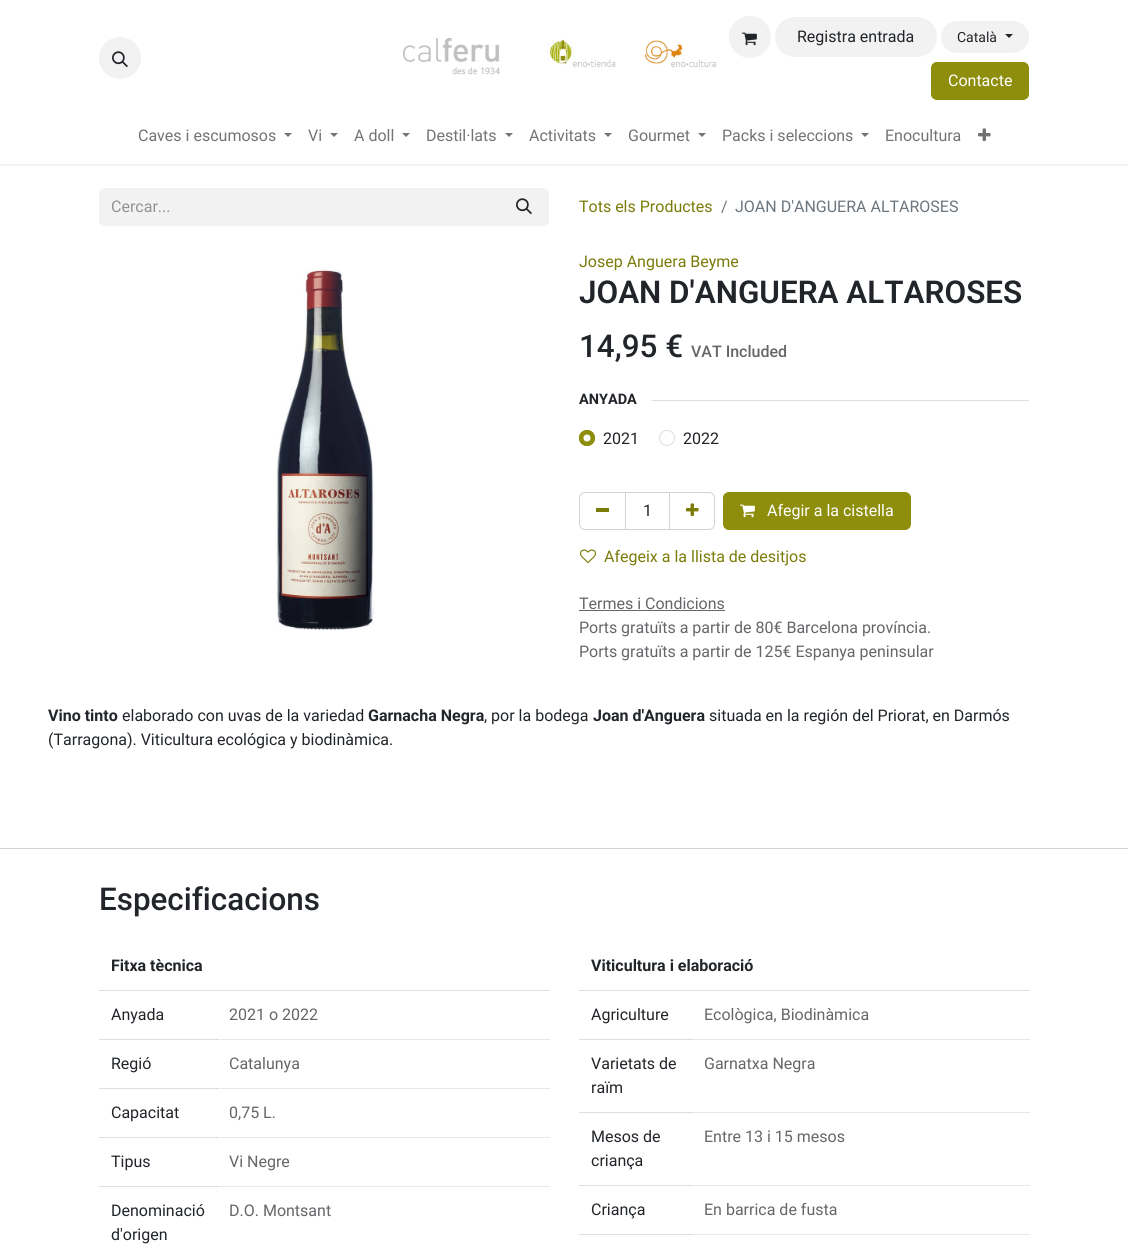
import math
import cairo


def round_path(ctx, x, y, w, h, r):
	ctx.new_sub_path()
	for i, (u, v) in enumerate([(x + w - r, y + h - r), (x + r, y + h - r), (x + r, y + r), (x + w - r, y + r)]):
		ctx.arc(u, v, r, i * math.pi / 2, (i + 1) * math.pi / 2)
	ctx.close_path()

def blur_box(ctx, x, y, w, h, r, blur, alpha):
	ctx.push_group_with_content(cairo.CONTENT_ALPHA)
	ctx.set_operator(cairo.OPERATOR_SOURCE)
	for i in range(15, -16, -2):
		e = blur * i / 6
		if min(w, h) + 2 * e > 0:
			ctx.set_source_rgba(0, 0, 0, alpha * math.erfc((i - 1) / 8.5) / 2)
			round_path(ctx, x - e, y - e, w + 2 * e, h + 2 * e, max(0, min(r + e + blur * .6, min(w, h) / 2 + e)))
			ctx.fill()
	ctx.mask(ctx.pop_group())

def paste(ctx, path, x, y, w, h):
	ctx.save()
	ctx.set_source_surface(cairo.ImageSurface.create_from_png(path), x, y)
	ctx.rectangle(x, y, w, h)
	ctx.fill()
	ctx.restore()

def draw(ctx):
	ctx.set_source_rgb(1, 1, 1)
	ctx.paint()
	ctx.set_source_rgb(0.871, 0.871, 0.875)
	ctx.rectangle(579, 1039, 113, 1)
	ctx.rectangle(579, 1112, 113, 1)
	ctx.rectangle(579, 1185, 113, 1)
	ctx.rectangle(579, 1234, 113, 1)
	ctx.rectangle(99, 1039, 118, 1)
	ctx.rectangle(99, 1088, 118, 1)
	ctx.rectangle(99, 1137, 118, 1)
	ctx.rectangle(99, 1186, 118, 1)
	ctx.fill()
	ctx.save()
	ctx.rectangle(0, 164, 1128, 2)
	ctx.clip()
	ctx.set_source_rgb(0, 0, 0)
	blur_box(ctx, 0, 1, 1128, 164, 0, 1.5, 0.1)
	ctx.restore()
	ctx.set_source_rgb(0.949, 0.949, 0.949)
	ctx.arc(120, 58, 21, 0, 2 * math.pi)
	ctx.fill()
	paste(ctx, 'media/1.png', 112, 51, 16, 17)
	paste(ctx, 'media/2.png', 403, 38, 314, 37)
	ctx.arc(750, 37, 21, 0, 2 * math.pi)
	ctx.fill()
	paste(ctx, 'media/3.png', 742, 32, 15, 14)
	round_path(ctx, 775, 17, 162, 40, 20)
	ctx.fill()
	ctx.select_font_face('Roboto')
	ctx.set_font_size(16)
	ctx.set_source_rgb(0.129, 0.145, 0.161)
	ctx.move_to(797, 42)
	ctx.show_text('Registra entrada')
	ctx.set_source_rgb(0.949, 0.949, 0.949)
	round_path(ctx, 941, 21, 88, 32, 16)
	ctx.fill()
	ctx.set_font_size(14)
	ctx.set_source_rgb(0.129, 0.145, 0.161)
	ctx.move_to(957, 42)
	ctx.show_text('Català')
	ctx.new_path()
	ctx.move_to(1005, 34)
	ctx.line_to(1013, 34)
	ctx.line_to(1009, 38)
	ctx.close_path()
	ctx.fill()
	ctx.set_source_rgb(0.557, 0.557, 0.047)
	round_path(ctx, 931.5, 62.5, 97, 37, 5.5)
	ctx.fill_preserve()
	ctx.set_line_width(1)
	ctx.stroke()
	ctx.set_font_size(16)
	ctx.set_source_rgb(1, 1, 1)
	ctx.move_to(948, 86)
	ctx.show_text('Contacte')
	ctx.set_source_rgb(0.451, 0.451, 0.451)
	ctx.move_to(138, 141)
	ctx.show_text('Caves i escumosos')
	ctx.new_path()
	ctx.move_to(284, 133)
	ctx.line_to(292, 133)
	ctx.line_to(288, 137)
	ctx.close_path()
	ctx.fill()
	ctx.move_to(308, 141)
	ctx.show_text('Vi')
	ctx.new_path()
	ctx.move_to(330, 133)
	ctx.line_to(338, 133)
	ctx.line_to(334, 137)
	ctx.close_path()
	ctx.fill()
	ctx.move_to(354, 141)
	ctx.show_text('A doll')
	ctx.new_path()
	ctx.move_to(402, 133)
	ctx.line_to(410, 133)
	ctx.line_to(406, 137)
	ctx.close_path()
	ctx.fill()
	ctx.move_to(426, 141)
	ctx.show_text('Destil·lats')
	ctx.new_path()
	ctx.move_to(505, 133)
	ctx.line_to(513, 133)
	ctx.line_to(509, 137)
	ctx.close_path()
	ctx.fill()
	ctx.move_to(529, 141)
	ctx.show_text('Activitats')
	ctx.new_path()
	ctx.move_to(604, 133)
	ctx.line_to(612, 133)
	ctx.line_to(608, 137)
	ctx.close_path()
	ctx.fill()
	ctx.move_to(628, 141)
	ctx.show_text('Gourmet')
	ctx.new_path()
	ctx.move_to(698, 133)
	ctx.line_to(706, 133)
	ctx.line_to(702, 137)
	ctx.close_path()
	ctx.fill()
	ctx.move_to(722, 141)
	ctx.show_text('Packs i seleccions')
	ctx.new_path()
	ctx.move_to(861, 133)
	ctx.line_to(869, 133)
	ctx.line_to(865, 137)
	ctx.close_path()
	ctx.fill()
	ctx.move_to(885, 141)
	ctx.show_text('Enocultura')
	paste(ctx, 'media/4.png', 978, 128, 13, 13)
	ctx.set_source_rgb(0.953, 0.949, 0.949)
	ctx.new_path()
	ctx.move_to(105, 188)
	ctx.line_to(500, 188)
	ctx.line_to(500, 226)
	ctx.line_to(105, 226)
	ctx.curve_to(101.5, 226, 99, 223.5, 99, 220)
	ctx.line_to(99, 194)
	ctx.curve_to(99, 190.5, 101.5, 188, 105, 188)
	ctx.close_path()
	ctx.fill()
	ctx.set_source_rgb(0.565, 0.573, 0.58)
	ctx.move_to(111, 212)
	ctx.show_text('Cercar...')
	ctx.set_source_rgb(0.953, 0.949, 0.949)
	ctx.new_path()
	ctx.move_to(499.5, 188.5)
	ctx.line_to(543, 188.5)
	ctx.curve_to(546, 188.5, 548.5, 191, 548.5, 194)
	ctx.line_to(548.5, 220)
	ctx.curve_to(548.5, 223, 546, 225.5, 543, 225.5)
	ctx.line_to(499.5, 225.5)
	ctx.close_path()
	ctx.fill_preserve()
	ctx.stroke()
	paste(ctx, 'media/5.png', 516, 198, 16, 17)
	ctx.set_source_rgb(0.482, 0.482, 0.039)
	ctx.move_to(579, 212)
	ctx.show_text('Tots els Productes')
	ctx.set_source_rgb(0.424, 0.459, 0.49)
	ctx.move_to(721, 212)
	ctx.show_text('/')
	ctx.move_to(735, 212)
	ctx.show_text('JOAN D\'ANGUERA ALTAROSES')
	paste(ctx, 'media/6.png', 276, 269, 99, 361)
	ctx.set_source_rgb(0.482, 0.482, 0.039)
	ctx.move_to(579, 267)
	ctx.show_text('Josep Anguera Beyme')
	ctx.select_font_face('Roboto SemiBold')
	ctx.set_font_size(31.4)
	ctx.set_source_rgb(0.129, 0.145, 0.161)
	ctx.move_to(579, 303)
	ctx.show_text('JOAN D\'ANGUERA ALTAROSES')
	ctx.select_font_face('Roboto Medium')
	ctx.move_to(579, 357)
	ctx.show_text('14,95 €')
	ctx.set_font_size(16)
	ctx.set_source_rgb(0.392, 0.4, 0.412)
	ctx.move_to(691, 357)
	ctx.show_text('VAT Included')
	ctx.select_font_face('Roboto', cairo.FONT_SLANT_NORMAL, cairo.FONT_WEIGHT_BOLD)
	ctx.set_font_size(14.5)
	ctx.set_source_rgb(0.129, 0.145, 0.161)
	ctx.move_to(579, 404)
	ctx.show_text('ANYADA')
	ctx.set_source_rgb(0.871, 0.871, 0.875)
	ctx.rectangle(652, 400, 377, 1)
	ctx.fill()
	ctx.set_source_rgb(0.557, 0.557, 0.047)
	ctx.arc(587, 438, 8, 0, 2 * math.pi)
	ctx.fill()
	ctx.set_source_rgb(1, 1, 1)
	ctx.arc(587, 438, 3.5, 0, 2 * math.pi)
	ctx.fill()
	ctx.arc(587, 438, 7.5, 0, 2 * math.pi)
	ctx.set_source_rgb(0.557, 0.557, 0.047)
	ctx.stroke()
	ctx.select_font_face('Roboto')
	ctx.set_font_size(16)
	ctx.set_source_rgb(0.129, 0.145, 0.161)
	ctx.move_to(603, 444)
	ctx.show_text('2021')
	ctx.new_path()
	ctx.arc(667, 438, 7.5, 0, 2 * math.pi)
	ctx.set_source_rgb(0.871, 0.871, 0.875)
	ctx.stroke()
	ctx.set_source_rgb(0.129, 0.145, 0.161)
	ctx.move_to(683, 444)
	ctx.show_text('2022')
	ctx.rectangle(625.5, 492.5, 44, 37)
	ctx.set_source_rgb(0.808, 0.831, 0.855)
	ctx.stroke()
	ctx.new_path()
	ctx.move_to(585, 492.5)
	ctx.line_to(625.5, 492.5)
	ctx.line_to(625.5, 529.5)
	ctx.line_to(585, 529.5)
	ctx.curve_to(582, 529.5, 579.5, 527, 579.5, 524)
	ctx.line_to(579.5, 498)
	ctx.curve_to(579.5, 495, 582, 492.5, 585, 492.5)
	ctx.close_path()
	ctx.stroke()
	ctx.set_source_rgb(0.482, 0.482, 0.039)
	ctx.rectangle(596, 508, 13, 4)
	ctx.fill()
	ctx.set_source_rgb(0.129, 0.145, 0.161)
	ctx.move_to(643, 516)
	ctx.show_text('1')
	ctx.new_path()
	ctx.move_to(669.5, 492.5)
	ctx.line_to(709, 492.5)
	ctx.curve_to(712, 492.5, 714.5, 495, 714.5, 498)
	ctx.line_to(714.5, 524)
	ctx.curve_to(714.5, 527, 712, 529.5, 709, 529.5)
	ctx.line_to(669.5, 529.5)
	ctx.close_path()
	ctx.set_source_rgb(0.808, 0.831, 0.855)
	ctx.stroke()
	paste(ctx, 'media/7.png', 686, 503, 13, 13)
	ctx.set_source_rgb(0.557, 0.557, 0.047)
	round_path(ctx, 723.5, 492.5, 187, 37, 5.5)
	ctx.fill_preserve()
	ctx.stroke()
	paste(ctx, 'media/8.png', 740, 504, 15, 14)
	ctx.set_source_rgb(1, 1, 1)
	ctx.move_to(767, 516)
	ctx.show_text('Afegir a la cistella')
	paste(ctx, 'media/9.png', 580, 549, 16, 15)
	ctx.set_source_rgb(0.482, 0.482, 0.039)
	ctx.move_to(604, 562)
	ctx.show_text('Afegeix a la llista de desitjos')
	ctx.set_source_rgb(0.392, 0.4, 0.412)
	ctx.move_to(579, 609)
	ctx.show_text('Termes i Condicions')
	ctx.rectangle(579, 610, 146, 1)
	ctx.fill()
	ctx.move_to(579, 633)
	ctx.show_text('Ports gratuïts a partir de 80€ Barcelona província.')
	ctx.move_to(579, 657)
	ctx.show_text('Ports gratuïts a partir de 125€ Espanya peninsular')
	ctx.select_font_face('Roboto', cairo.FONT_SLANT_NORMAL, cairo.FONT_WEIGHT_BOLD)
	ctx.set_source_rgb(0.129, 0.145, 0.161)
	ctx.move_to(48, 721)
	ctx.show_text('Vino tinto')
	ctx.select_font_face('Roboto')
	ctx.move_to(122, 721)
	ctx.show_text('elaborado con uvas de la variedad')
	ctx.select_font_face('Roboto', cairo.FONT_SLANT_NORMAL, cairo.FONT_WEIGHT_BOLD)
	ctx.move_to(368, 721)
	ctx.show_text('Garnacha Negra')
	ctx.select_font_face('Roboto')
	ctx.move_to(484, 721)
	ctx.show_text(', por la bodega')
	ctx.select_font_face('Roboto', cairo.FONT_SLANT_NORMAL, cairo.FONT_WEIGHT_BOLD)
	ctx.move_to(593, 721)
	ctx.show_text('Joan d\'Anguera')
	ctx.select_font_face('Roboto')
	ctx.move_to(709, 721)
	ctx.show_text('situada en la región del Priorat, en Darmós')
	ctx.move_to(48, 745)
	ctx.show_text('(Tarragona). Viticultura ecológica y biodinàmica.')
	ctx.set_source_rgb(0.808, 0.831, 0.855)
	ctx.rectangle(0, 848, 1128, 1)
	ctx.fill()
	ctx.select_font_face('Roboto Medium')
	ctx.set_font_size(31.4)
	ctx.set_source_rgb(0.129, 0.145, 0.161)
	ctx.move_to(99, 910)
	ctx.show_text('Especificacions')
	ctx.set_source_rgb(0.871, 0.871, 0.875)
	ctx.rectangle(99, 990, 451, 1)
	ctx.fill()
	ctx.select_font_face('Roboto', cairo.FONT_SLANT_NORMAL, cairo.FONT_WEIGHT_BOLD)
	ctx.set_font_size(16)
	ctx.set_source_rgb(0.129, 0.145, 0.161)
	ctx.move_to(111, 971)
	ctx.show_text('Fitxa tècnica')
	ctx.select_font_face('Roboto')
	ctx.move_to(111, 1020)
	ctx.show_text('Anyada')
	ctx.set_source_rgb(0.91, 0.91, 0.91)
	ctx.rectangle(216, 1039, 334, 1)
	ctx.fill()
	ctx.set_source_rgb(0.792, 0.796, 0.796)
	ctx.rectangle(216, 1039, 1, 1)
	ctx.fill()
	ctx.set_source_rgb(0.392, 0.4, 0.412)
	ctx.move_to(229, 1020)
	ctx.show_text('2021 o 2022')
	ctx.set_source_rgb(0.129, 0.145, 0.161)
	ctx.move_to(111, 1069)
	ctx.show_text('Regió')
	ctx.set_source_rgb(0.91, 0.91, 0.91)
	ctx.rectangle(216, 1088, 334, 1)
	ctx.fill()
	ctx.set_source_rgb(0.792, 0.796, 0.796)
	ctx.rectangle(216, 1088, 1, 1)
	ctx.fill()
	ctx.set_source_rgb(0.392, 0.4, 0.412)
	ctx.move_to(229, 1069)
	ctx.show_text('Catalunya')
	ctx.set_source_rgb(0.129, 0.145, 0.161)
	ctx.move_to(111, 1118)
	ctx.show_text('Capacitat')
	ctx.set_source_rgb(0.91, 0.91, 0.91)
	ctx.rectangle(216, 1137, 334, 1)
	ctx.fill()
	ctx.set_source_rgb(0.792, 0.796, 0.796)
	ctx.rectangle(216, 1137, 1, 1)
	ctx.fill()
	ctx.set_source_rgb(0.392, 0.4, 0.412)
	ctx.move_to(229, 1118)
	ctx.show_text('0,75 L.')
	ctx.set_source_rgb(0.129, 0.145, 0.161)
	ctx.move_to(111, 1167)
	ctx.show_text('Tipus')
	ctx.set_source_rgb(0.91, 0.91, 0.91)
	ctx.rectangle(216, 1186, 334, 1)
	ctx.fill()
	ctx.set_source_rgb(0.792, 0.796, 0.796)
	ctx.rectangle(216, 1186, 1, 1)
	ctx.fill()
	ctx.set_source_rgb(0.392, 0.4, 0.412)
	ctx.move_to(229, 1167)
	ctx.show_text('Vi Negre')
	ctx.set_source_rgb(0.129, 0.145, 0.161)
	ctx.move_to(111, 1216)
	ctx.show_text('Denominació')
	ctx.move_to(111, 1240)
	ctx.show_text('d\'origen')
	ctx.set_source_rgb(0.392, 0.4, 0.412)
	ctx.move_to(229, 1216)
	ctx.show_text('D.O. Montsant')
	ctx.set_source_rgb(0.871, 0.871, 0.875)
	ctx.rectangle(579, 990, 451, 1)
	ctx.fill()
	ctx.select_font_face('Roboto', cairo.FONT_SLANT_NORMAL, cairo.FONT_WEIGHT_BOLD)
	ctx.set_source_rgb(0.129, 0.145, 0.161)
	ctx.move_to(591, 971)
	ctx.show_text('Viticultura i elaboració')
	ctx.select_font_face('Roboto')
	ctx.move_to(591, 1020)
	ctx.show_text('Agriculture')
	ctx.set_source_rgb(0.91, 0.91, 0.91)
	ctx.rectangle(691, 1039, 339, 1)
	ctx.fill()
	ctx.set_source_rgb(0.792, 0.796, 0.796)
	ctx.rectangle(691, 1039, 1, 1)
	ctx.fill()
	ctx.set_source_rgb(0.392, 0.4, 0.412)
	ctx.move_to(704, 1020)
	ctx.show_text('Ecològica, Biodinàmica')
	ctx.set_source_rgb(0.129, 0.145, 0.161)
	ctx.move_to(591, 1069)
	ctx.show_text('Varietats de')
	ctx.move_to(591, 1093)
	ctx.show_text('raïm')
	ctx.set_source_rgb(0.91, 0.91, 0.91)
	ctx.rectangle(691, 1112, 339, 1)
	ctx.fill()
	ctx.set_source_rgb(0.792, 0.796, 0.796)
	ctx.rectangle(691, 1112, 1, 1)
	ctx.fill()
	ctx.set_source_rgb(0.392, 0.4, 0.412)
	ctx.move_to(704, 1069)
	ctx.show_text('Garnatxa Negra')
	ctx.set_source_rgb(0.129, 0.145, 0.161)
	ctx.move_to(591, 1142)
	ctx.show_text('Mesos de')
	ctx.move_to(591, 1166)
	ctx.show_text('criança')
	ctx.set_source_rgb(0.91, 0.91, 0.91)
	ctx.rectangle(691, 1185, 339, 1)
	ctx.fill()
	ctx.set_source_rgb(0.792, 0.796, 0.796)
	ctx.rectangle(691, 1185, 1, 1)
	ctx.fill()
	ctx.set_source_rgb(0.392, 0.4, 0.412)
	ctx.move_to(704, 1142)
	ctx.show_text('Entre 13 i 15 mesos')
	ctx.set_source_rgb(0.129, 0.145, 0.161)
	ctx.move_to(591, 1215)
	ctx.show_text('Criança')
	ctx.set_source_rgb(0.91, 0.91, 0.91)
	ctx.rectangle(691, 1234, 339, 1)
	ctx.fill()
	ctx.set_source_rgb(0.792, 0.796, 0.796)
	ctx.rectangle(691, 1234, 1, 1)
	ctx.fill()
	ctx.set_source_rgb(0.392, 0.4, 0.412)
	ctx.move_to(704, 1215)
	ctx.show_text('En barrica de fusta')


surface = cairo.ImageSurface(cairo.FORMAT_RGB24, 1128, 1247)
ctx = cairo.Context(surface)
options = cairo.FontOptions()
options.set_hint_metrics(cairo.HINT_METRICS_OFF)
options.set_hint_style(cairo.HINT_STYLE_NONE)
ctx.set_font_options(options)
ctx.set_miter_limit(4)
draw(ctx)
surface.write_to_png('image.png')
